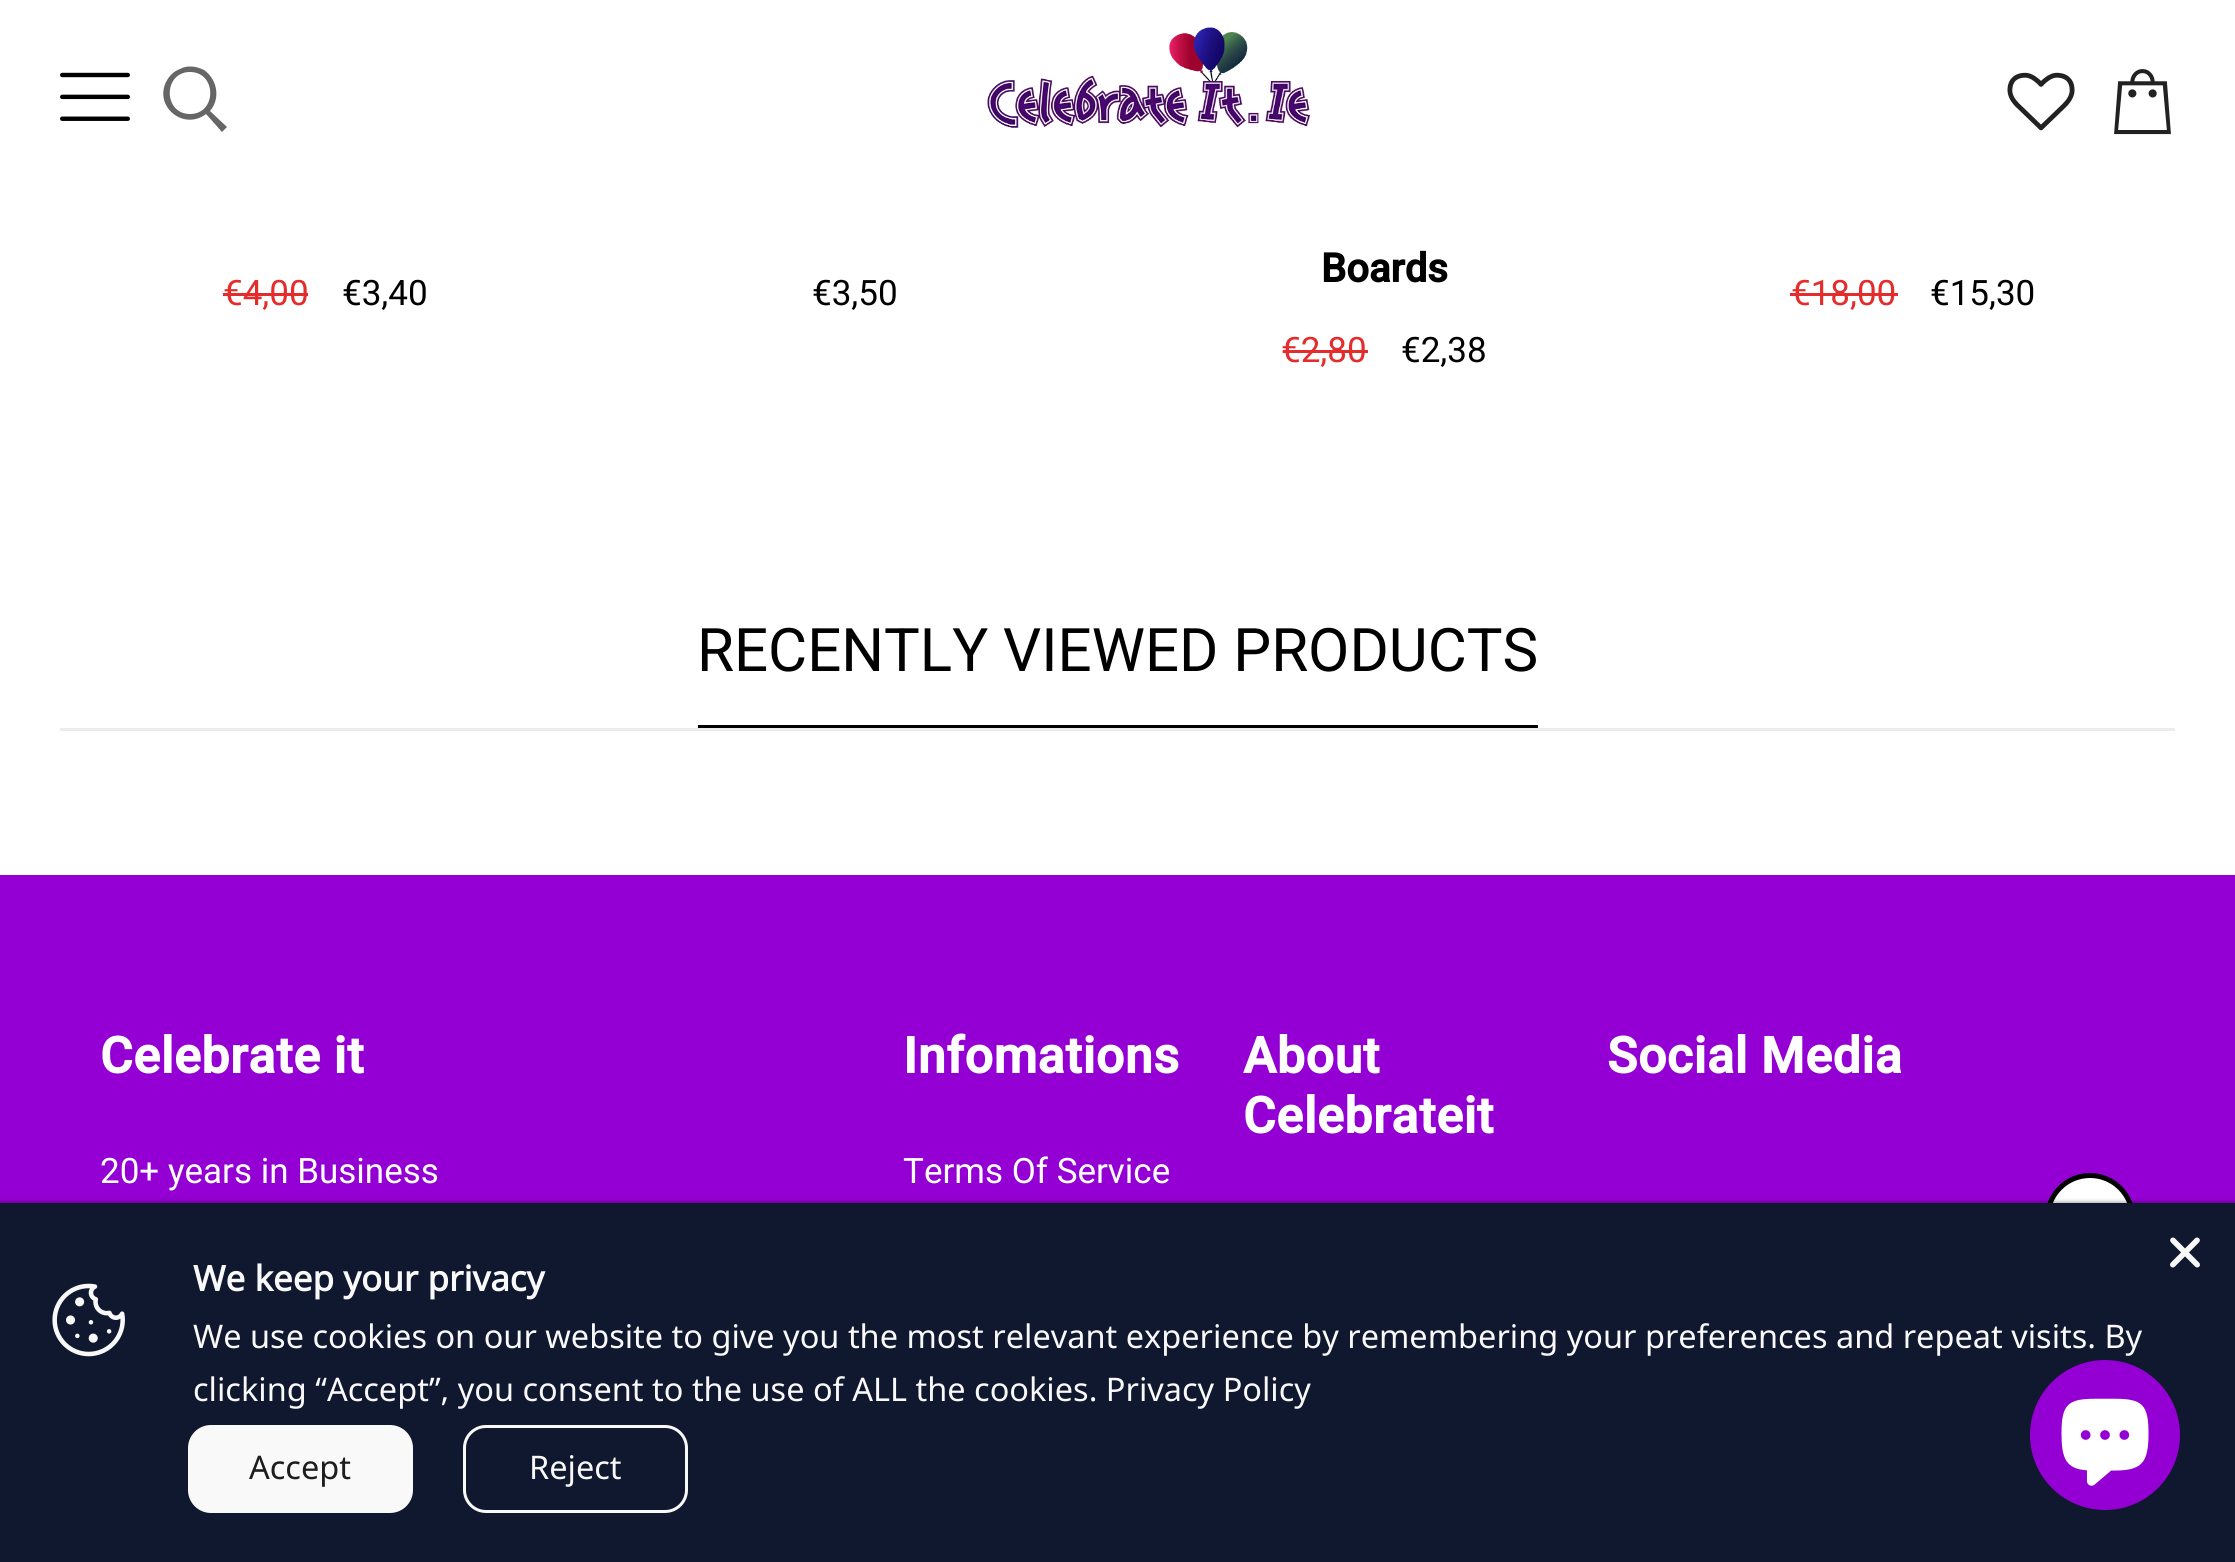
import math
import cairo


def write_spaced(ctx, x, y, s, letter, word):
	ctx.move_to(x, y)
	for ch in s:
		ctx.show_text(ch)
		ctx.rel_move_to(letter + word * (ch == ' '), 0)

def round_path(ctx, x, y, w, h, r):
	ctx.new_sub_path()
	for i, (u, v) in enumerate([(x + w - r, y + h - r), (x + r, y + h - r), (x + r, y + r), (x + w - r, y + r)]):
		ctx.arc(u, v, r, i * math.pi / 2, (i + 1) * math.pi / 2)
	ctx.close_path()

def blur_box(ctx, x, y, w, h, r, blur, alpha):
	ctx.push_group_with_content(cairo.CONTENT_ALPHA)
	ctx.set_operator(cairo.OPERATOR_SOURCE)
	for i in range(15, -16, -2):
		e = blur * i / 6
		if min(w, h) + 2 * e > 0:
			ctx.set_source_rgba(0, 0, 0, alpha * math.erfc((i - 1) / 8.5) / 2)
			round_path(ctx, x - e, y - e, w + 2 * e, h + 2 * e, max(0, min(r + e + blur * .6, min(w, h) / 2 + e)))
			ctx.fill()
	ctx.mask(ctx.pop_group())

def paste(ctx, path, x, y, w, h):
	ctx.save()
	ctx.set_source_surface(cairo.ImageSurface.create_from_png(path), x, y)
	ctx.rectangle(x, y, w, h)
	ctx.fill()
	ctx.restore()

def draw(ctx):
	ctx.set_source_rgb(1, 1, 1)
	ctx.paint()
	paste(ctx, 'media/1.png', 60, 72, 70, 49)
	ctx.set_source_rgb(0.4, 0.4, 0.4)
	ctx.new_path()
	ctx.move_to(210, 111)
	ctx.curve_to(221, 98, 217, 79, 204, 70)
	ctx.curve_to(196, 66, 187, 65, 180, 69)
	ctx.curve_to(174, 71, 169, 76, 166, 82)
	ctx.curve_to(154, 107, 184, 131, 206, 114)
	ctx.line_to(222, 132)
	ctx.line_to(227, 127)
	ctx.close_path()
	ctx.move_to(190, 114)
	ctx.curve_to(163, 114, 163, 72, 190, 72)
	ctx.curve_to(217, 72, 217, 114, 190, 114)
	ctx.close_path()
	ctx.fill()
	paste(ctx, 'media/2.png', 987, 27, 323, 101)
	paste(ctx, 'media/3.png', 2007, 72, 68, 59)
	paste(ctx, 'media/4.png', 2114, 69, 57, 66)
	ctx.select_font_face('Roboto')
	ctx.set_font_size(35)
	ctx.set_source_rgb(0.89, 0.173, 0.169)
	ctx.move_to(223, 305)
	ctx.show_text('€4,00')
	ctx.rectangle(223, 293, 85, 3)
	ctx.fill()
	ctx.set_source_rgb(0, 0, 0)
	ctx.move_to(342, 305)
	ctx.show_text('€3,40')
	ctx.move_to(812, 305)
	ctx.show_text('€3,50')
	ctx.select_font_face('Roboto', cairo.FONT_SLANT_NORMAL, cairo.FONT_WEIGHT_BOLD)
	ctx.set_font_size(40)
	ctx.move_to(1321, 282)
	ctx.show_text('Boards')
	ctx.select_font_face('Roboto')
	ctx.set_font_size(35)
	ctx.set_source_rgb(0.89, 0.173, 0.169)
	ctx.move_to(1281, 362)
	ctx.show_text('€2,80')
	ctx.rectangle(1283, 350, 85, 3)
	ctx.fill()
	ctx.set_source_rgb(0, 0, 0)
	ctx.move_to(1401, 362)
	ctx.show_text('€2,38')
	ctx.set_source_rgb(0.89, 0.173, 0.169)
	ctx.move_to(1791, 305)
	ctx.show_text('€18,00')
	ctx.rectangle(1790, 293, 108, 3)
	ctx.fill()
	ctx.set_source_rgb(0, 0, 0)
	ctx.move_to(1930, 305)
	ctx.show_text('€15,30')
	ctx.set_source_rgb(0.922, 0.922, 0.922)
	ctx.rectangle(60, 728, 2115, 3)
	ctx.fill()
	ctx.set_source_rgb(0, 0, 0)
	ctx.rectangle(698, 725, 840, 3)
	ctx.fill()
	ctx.set_font_size(60)
	ctx.move_to(697, 671)
	ctx.show_text('RECENTLY VIEWED PRODUCTS')
	ctx.set_source_rgb(0.58, 0, 0.827)
	ctx.rectangle(0, 875, 2235, 328)
	ctx.fill()
	ctx.select_font_face('Roboto', cairo.FONT_SLANT_NORMAL, cairo.FONT_WEIGHT_BOLD)
	ctx.set_font_size(50)
	ctx.set_source_rgb(1, 1, 1)
	write_spaced(ctx, 100, 1073, 'Celebrate it', 0.6, 0)
	ctx.select_font_face('Roboto')
	ctx.set_font_size(35)
	ctx.move_to(100, 1183)
	ctx.show_text('20+ years in Business')
	ctx.select_font_face('Roboto', cairo.FONT_SLANT_NORMAL, cairo.FONT_WEIGHT_BOLD)
	ctx.set_font_size(50)
	write_spaced(ctx, 903, 1073, 'Infomations', 0.6, 0)
	ctx.select_font_face('Roboto')
	ctx.set_font_size(35)
	ctx.move_to(903, 1183)
	ctx.show_text('Terms Of Service')
	ctx.select_font_face('Roboto', cairo.FONT_SLANT_NORMAL, cairo.FONT_WEIGHT_BOLD)
	ctx.set_font_size(50)
	for x, y, s in [
		(1243, 1073, 'About'),
		(1243, 1133, 'Celebrateit'),
		(1607, 1073, 'Social Media'),
	]:
		write_spaced(ctx, x, y, s, 0.6, 0)
	ctx.new_path()
	ctx.arc(2090, 1218, 42.5, 0, 2 * math.pi)
	ctx.fill_preserve()
	ctx.set_source_rgb(0, 0, 0)
	ctx.set_line_width(5)
	ctx.stroke()
	ctx.set_source_rgb(0, 0, 0)
	blur_box(ctx, 0, 1203, 2235, 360, 0, 2.5, 0.5)
	ctx.set_source_rgb(0.063, 0.094, 0.184)
	ctx.rectangle(0, 1203, 2235, 359)
	ctx.fill()
	paste(ctx, 'media/5.png', 2170, 1237, 30, 31)
	paste(ctx, 'media/6.png', 52, 1283, 73, 74)
	ctx.select_font_face('Noto Sans', cairo.FONT_SLANT_NORMAL, cairo.FONT_WEIGHT_BOLD)
	ctx.set_font_size(35)
	ctx.set_source_rgb(0.973, 0.973, 0.973)
	ctx.move_to(193, 1291)
	ctx.show_text('We keep your privacy')
	ctx.select_font_face('Noto Sans')
	ctx.set_font_size(32.5)
	ctx.move_to(193, 1348)
	ctx.show_text('We use cookies on our website to give you the most relevant experience by remembering your preferences and repeat visits. By')
	ctx.move_to(193, 1401)
	ctx.show_text('clicking “Accept”, you consent to the use of ALL the cookies. Privacy Policy')
	round_path(ctx, 188, 1425, 225, 88, 23)
	ctx.fill()
	ctx.set_source_rgb(0.114, 0.114, 0.114)
	ctx.move_to(249, 1479)
	ctx.show_text('Accept')
	round_path(ctx, 464.5, 1426.5, 222, 85, 21.5)
	ctx.set_source_rgb(0.973, 0.973, 0.973)
	ctx.set_line_width(3)
	ctx.stroke()
	ctx.move_to(529, 1479)
	ctx.show_text('Reject')
	ctx.set_source_rgb(0.58, 0, 0.827)
	ctx.new_path()
	ctx.arc(2105, 1435, 75, 0, 2 * math.pi)
	ctx.fill()
	paste(ctx, 'media/7.png', 2061, 1398, 88, 88)


surface = cairo.ImageSurface(cairo.FORMAT_RGB24, 2235, 1562)
ctx = cairo.Context(surface)
options = cairo.FontOptions()
options.set_hint_metrics(cairo.HINT_METRICS_OFF)
options.set_hint_style(cairo.HINT_STYLE_NONE)
ctx.set_font_options(options)
ctx.set_miter_limit(4)
draw(ctx)
surface.write_to_png('image.png')
